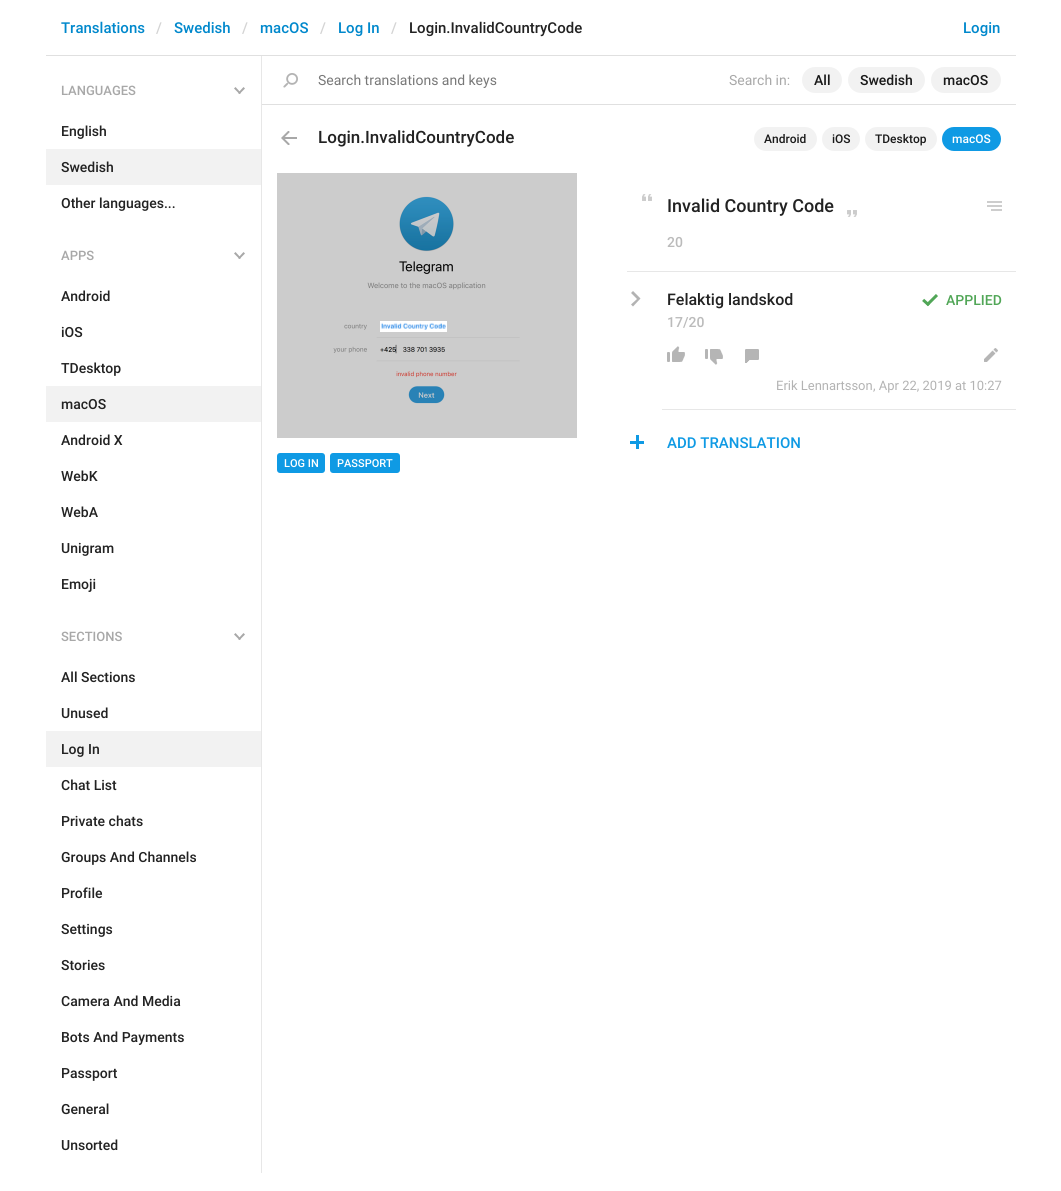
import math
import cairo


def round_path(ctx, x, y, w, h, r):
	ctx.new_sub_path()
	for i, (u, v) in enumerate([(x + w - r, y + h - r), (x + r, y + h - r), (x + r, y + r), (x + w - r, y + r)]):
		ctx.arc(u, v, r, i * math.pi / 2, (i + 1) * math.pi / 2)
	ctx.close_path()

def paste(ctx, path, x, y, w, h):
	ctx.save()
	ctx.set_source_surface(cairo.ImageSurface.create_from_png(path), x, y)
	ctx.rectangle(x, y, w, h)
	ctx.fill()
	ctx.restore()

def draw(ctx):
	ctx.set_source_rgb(1, 1, 1)
	ctx.paint()
	ctx.set_source_rgb(0.906, 0.906, 0.906)
	ctx.rectangle(261, 54, 1, 1119)
	ctx.fill()
	ctx.set_source_rgb(1, 1, 1)
	ctx.rectangle(261, 54, 1, 2)
	ctx.fill()
	ctx.set_source_rgb(0.878, 0.878, 0.878)
	ctx.rectangle(46, 55, 970, 1)
	ctx.fill()
	ctx.select_font_face('Roboto Medium')
	ctx.set_font_size(15)
	ctx.set_source_rgb(0, 0.533, 0.8)
	ctx.move_to(61, 33)
	ctx.show_text('Translations')
	ctx.set_source_rgb(0.831, 0.831, 0.831)
	ctx.move_to(156, 33)
	ctx.show_text('/')
	ctx.set_source_rgb(0, 0.533, 0.8)
	ctx.move_to(174, 33)
	ctx.show_text('Swedish')
	ctx.set_source_rgb(0.831, 0.831, 0.831)
	ctx.move_to(242, 33)
	ctx.show_text('/')
	ctx.set_source_rgb(0, 0.533, 0.8)
	ctx.move_to(260, 33)
	ctx.show_text('macOS')
	ctx.set_source_rgb(0.831, 0.831, 0.831)
	ctx.move_to(320, 33)
	ctx.show_text('/')
	ctx.set_source_rgb(0, 0.533, 0.8)
	ctx.move_to(338, 33)
	ctx.show_text('Log In')
	ctx.set_source_rgb(0.831, 0.831, 0.831)
	ctx.move_to(391, 33)
	ctx.show_text('/')
	ctx.set_source_rgb(0.133, 0.133, 0.133)
	ctx.move_to(409, 33)
	ctx.show_text('Login.InvalidCountryCode')
	ctx.set_source_rgb(0, 0.533, 0.8)
	ctx.move_to(963, 33)
	ctx.show_text('Login')
	ctx.set_source_rgb(0.878, 0.878, 0.878)
	ctx.rectangle(262, 104, 754, 1)
	ctx.fill()
	paste(ctx, 'media/1.png', 283, 73, 15, 15)
	ctx.select_font_face('Roboto')
	ctx.set_font_size(14)
	ctx.set_source_rgb(0.467, 0.467, 0.467)
	ctx.move_to(318, 85)
	ctx.show_text('Search translations and keys')
	ctx.set_source_rgb(0.659, 0.659, 0.659)
	ctx.move_to(729, 85)
	ctx.show_text('Search in:')
	ctx.set_source_rgb(0.949, 0.949, 0.949)
	round_path(ctx, 802, 67, 40, 26, 13)
	ctx.fill()
	ctx.select_font_face('Roboto Medium')
	ctx.set_source_rgb(0.102, 0.102, 0.102)
	ctx.move_to(814, 85)
	ctx.show_text('All')
	ctx.set_source_rgb(0.949, 0.949, 0.949)
	round_path(ctx, 848, 67, 77, 26, 13)
	ctx.fill()
	ctx.set_source_rgb(0.102, 0.102, 0.102)
	ctx.move_to(860, 85)
	ctx.show_text('Swedish')
	ctx.set_source_rgb(0.949, 0.949, 0.949)
	round_path(ctx, 931, 67, 70, 26, 13)
	ctx.fill()
	ctx.set_source_rgb(0.102, 0.102, 0.102)
	ctx.move_to(943, 85)
	ctx.show_text('macOS')
	ctx.set_font_size(13)
	ctx.set_source_rgb(0.659, 0.659, 0.659)
	ctx.move_to(61, 95)
	ctx.show_text('LANGUAGES')
	ctx.new_path()
	ctx.move_to(239.5, 94)
	ctx.line_to(234, 88.5)
	ctx.line_to(235.5, 87)
	ctx.line_to(241, 93)
	ctx.close_path()
	ctx.fill()
	ctx.new_path()
	ctx.move_to(239.5, 94)
	ctx.line_to(238, 93)
	ctx.line_to(243.5, 87)
	ctx.line_to(245, 88.5)
	ctx.close_path()
	ctx.fill()
	ctx.set_font_size(14)
	ctx.set_source_rgb(0.133, 0.133, 0.133)
	ctx.move_to(61, 136)
	ctx.show_text('English')
	ctx.set_source_rgb(0.949, 0.949, 0.949)
	ctx.rectangle(46, 149, 215, 36)
	ctx.fill()
	ctx.set_source_rgb(0.133, 0.133, 0.133)
	ctx.move_to(61, 172)
	ctx.show_text('Swedish')
	ctx.move_to(61, 208)
	ctx.show_text('Other languages...')
	ctx.set_font_size(13)
	ctx.set_source_rgb(0.659, 0.659, 0.659)
	ctx.move_to(61, 260)
	ctx.show_text('APPS')
	ctx.new_path()
	ctx.move_to(239.5, 259)
	ctx.line_to(234, 253.5)
	ctx.line_to(235.5, 252)
	ctx.line_to(241, 258)
	ctx.close_path()
	ctx.fill()
	ctx.new_path()
	ctx.move_to(239.5, 259)
	ctx.line_to(238, 258)
	ctx.line_to(243.5, 252)
	ctx.line_to(245, 253.5)
	ctx.close_path()
	ctx.fill()
	ctx.set_font_size(14)
	ctx.set_source_rgb(0.133, 0.133, 0.133)
	for x, y, s in [
		(61, 301, 'Android'),
		(61, 337, 'iOS'),
		(61, 373, 'TDesktop'),
	]:
		ctx.move_to(x, y)
		ctx.show_text(s)
	ctx.set_source_rgb(0.949, 0.949, 0.949)
	ctx.rectangle(46, 386, 215, 36)
	ctx.fill()
	ctx.set_source_rgb(0.133, 0.133, 0.133)
	for x, y, s in [
		(61, 409, 'macOS'),
		(61, 445, 'Android X'),
		(61, 481, 'WebK'),
		(61, 517, 'WebA'),
		(61, 553, 'Unigram'),
		(61, 589, 'Emoji'),
	]:
		ctx.move_to(x, y)
		ctx.show_text(s)
	ctx.set_font_size(13)
	ctx.set_source_rgb(0.659, 0.659, 0.659)
	ctx.move_to(61, 641)
	ctx.show_text('SECTIONS')
	ctx.new_path()
	ctx.move_to(239.5, 640)
	ctx.line_to(234, 634.5)
	ctx.line_to(235.5, 633)
	ctx.line_to(241, 639)
	ctx.close_path()
	ctx.fill()
	ctx.new_path()
	ctx.move_to(239.5, 640)
	ctx.line_to(238, 639)
	ctx.line_to(243.5, 633)
	ctx.line_to(245, 634.5)
	ctx.close_path()
	ctx.fill()
	ctx.set_font_size(14)
	ctx.set_source_rgb(0.133, 0.133, 0.133)
	ctx.move_to(61, 682)
	ctx.show_text('All Sections')
	ctx.move_to(61, 718)
	ctx.show_text('Unused')
	ctx.set_source_rgb(0.949, 0.949, 0.949)
	ctx.rectangle(46, 731, 215, 36)
	ctx.fill()
	ctx.set_source_rgb(0.133, 0.133, 0.133)
	for x, y, s in [
		(61, 754, 'Log In'),
		(61, 790, 'Chat List'),
		(61, 826, 'Private chats'),
		(61, 862, 'Groups And Channels'),
		(61, 898, 'Profile'),
		(61, 934, 'Settings'),
		(61, 970, 'Stories'),
		(61, 1006, 'Camera And Media'),
		(61, 1042, 'Bots And Payments'),
		(61, 1078, 'Passport'),
		(61, 1114, 'General'),
		(61, 1150, 'Unsorted'),
	]:
		ctx.move_to(x, y)
		ctx.show_text(s)
	paste(ctx, 'media/2.png', 281, 131, 16, 14)
	ctx.set_font_size(17)
	ctx.move_to(318, 143)
	ctx.show_text('Login.InvalidCountryCode')
	ctx.set_source_rgb(0.949, 0.949, 0.949)
	round_path(ctx, 754, 127, 63, 24, 12)
	ctx.fill()
	ctx.set_font_size(12)
	ctx.set_source_rgb(0.102, 0.102, 0.102)
	ctx.move_to(764, 143)
	ctx.show_text('Android')
	ctx.set_source_rgb(0.949, 0.949, 0.949)
	round_path(ctx, 822, 127, 38, 24, 12)
	ctx.fill()
	ctx.set_source_rgb(0.102, 0.102, 0.102)
	ctx.move_to(832, 143)
	ctx.show_text('iOS')
	ctx.set_source_rgb(0.949, 0.949, 0.949)
	round_path(ctx, 865, 127, 72, 24, 12)
	ctx.fill()
	ctx.set_source_rgb(0.102, 0.102, 0.102)
	ctx.move_to(875, 143)
	ctx.show_text('TDesktop')
	ctx.set_source_rgb(0.059, 0.604, 0.894)
	round_path(ctx, 942, 127, 59, 24, 12)
	ctx.fill()
	ctx.set_source_rgb(1, 1, 1)
	ctx.move_to(952, 143)
	ctx.show_text('macOS')
	paste(ctx, 'media/3.png', 642, 194, 10, 7)
	ctx.set_font_size(18)
	ctx.set_source_rgb(0.133, 0.133, 0.133)
	ctx.move_to(667, 212)
	ctx.show_text('Invalid Country Code')
	paste(ctx, 'media/4.png', 847, 210, 10, 7)
	paste(ctx, 'media/5.png', 987, 201, 15, 10)
	ctx.set_font_size(14)
	ctx.set_source_rgb(0.733, 0.733, 0.733)
	ctx.move_to(667, 247)
	ctx.show_text('20')
	ctx.set_source_rgb(0.906, 0.906, 0.906)
	ctx.rectangle(627, 271, 389, 1)
	ctx.fill()
	ctx.save()
	ctx.rectangle(602, 272, 414, 139)
	ctx.clip()
	ctx.new_path()
	ctx.move_to(662, 409)
	ctx.line_to(662, 410)
	ctx.line_to(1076, 410)
	ctx.line_to(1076, 273)
	ctx.line_to(1016, 273)
	ctx.line_to(1016, 409)
	ctx.close_path()
	ctx.fill()
	ctx.restore()
	ctx.set_source_rgb(0.702, 0.702, 0.702)
	ctx.new_path()
	ctx.move_to(637, 299)
	ctx.line_to(631, 304.5)
	ctx.line_to(633, 306.5)
	ctx.line_to(640.5, 298.5)
	ctx.line_to(633, 291)
	ctx.line_to(631, 293)
	ctx.close_path()
	ctx.fill()
	ctx.set_font_size(16)
	ctx.set_source_rgb(0.133, 0.133, 0.133)
	ctx.move_to(667, 305)
	ctx.show_text('Felaktig landskod')
	ctx.set_font_size(14)
	ctx.set_source_rgb(0.733, 0.733, 0.733)
	ctx.move_to(667, 327)
	ctx.show_text('17/20')
	paste(ctx, 'media/6.png', 667, 346, 18, 16)
	paste(ctx, 'media/7.png', 705, 349, 18, 16)
	paste(ctx, 'media/8.png', 745, 349, 14, 14)
	paste(ctx, 'media/9.png', 984, 348, 14, 14)
	ctx.select_font_face('Roboto')
	ctx.set_font_size(13)
	ctx.set_source_rgb(0.702, 0.702, 0.702)
	ctx.move_to(776, 390)
	ctx.show_text('Erik Lennartsson')
	ctx.move_to(873, 390)
	ctx.show_text(', Apr 22, 2019 at 10:27')
	paste(ctx, 'media/10.png', 922, 294, 16, 13)
	ctx.select_font_face('Roboto Medium')
	ctx.set_font_size(14)
	ctx.set_source_rgb(0.318, 0.651, 0.341)
	ctx.move_to(946, 305)
	ctx.show_text('APPLIED')
	ctx.set_source_rgb(0.059, 0.604, 0.894)
	ctx.rectangle(630, 441, 14, 3)
	ctx.fill()
	ctx.rectangle(636, 435, 3, 14)
	ctx.fill()
	ctx.set_font_size(15)
	ctx.move_to(667, 448)
	ctx.show_text('ADD TRANSLATION')
	paste(ctx, 'media/11.png', 277, 173, 300, 265)
	paste(ctx, 'media/12.png', 380, 321, 67, 11)
	round_path(ctx, 277, 453, 48, 20, 3)
	ctx.fill()
	ctx.set_font_size(11)
	ctx.set_source_rgb(1, 1, 1)
	ctx.move_to(284, 467)
	ctx.show_text('LOG IN')
	ctx.set_source_rgb(0.059, 0.604, 0.894)
	round_path(ctx, 330, 453, 70, 20, 3)
	ctx.fill()
	ctx.set_source_rgb(1, 1, 1)
	ctx.move_to(337, 467)
	ctx.show_text('PASSPORT')


surface = cairo.ImageSurface(cairo.FORMAT_RGB24, 1061, 1191)
ctx = cairo.Context(surface)
options = cairo.FontOptions()
options.set_hint_metrics(cairo.HINT_METRICS_OFF)
options.set_hint_style(cairo.HINT_STYLE_NONE)
ctx.set_font_options(options)
ctx.set_miter_limit(4)
draw(ctx)
surface.write_to_png('image.png')
